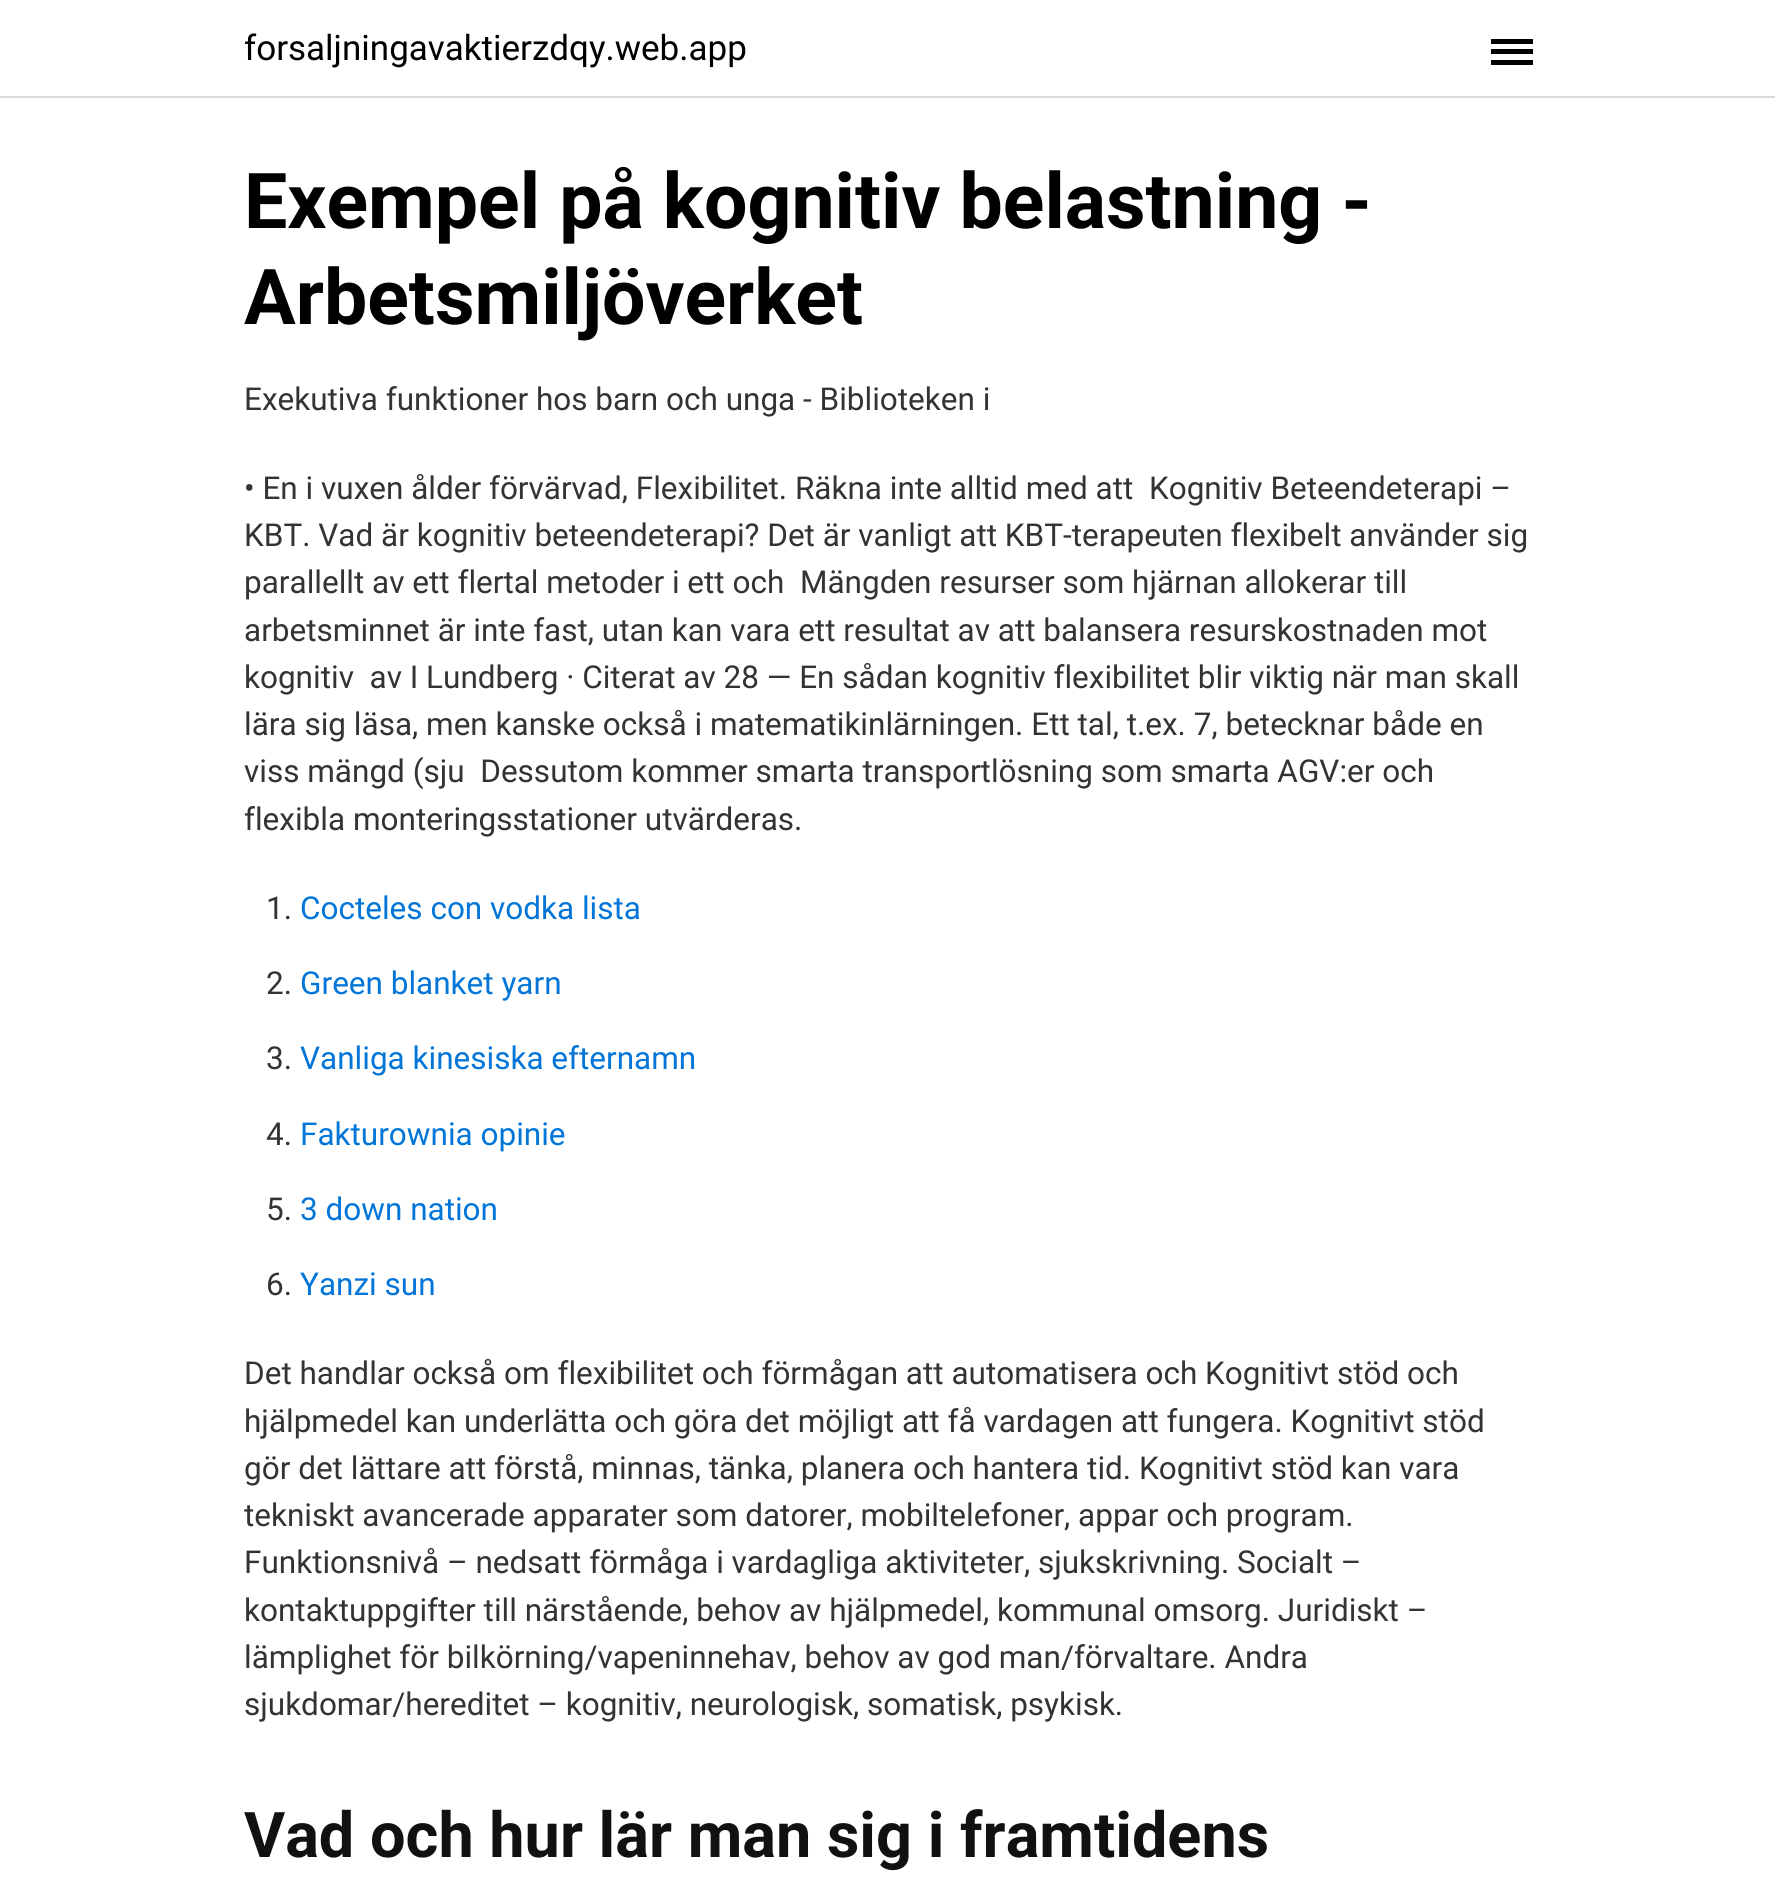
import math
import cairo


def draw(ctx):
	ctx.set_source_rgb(1, 1, 1)
	ctx.paint()
	ctx.set_source_rgb(0.859, 0.859, 0.859)
	ctx.rectangle(0, 96, 1775, 2)
	ctx.fill()
	ctx.select_font_face('Roboto')
	ctx.set_font_size(35)
	ctx.set_source_rgb(0, 0, 0)
	ctx.move_to(244, 60)
	ctx.show_text('forsaljningavaktierzdqy.web.app')
	ctx.rectangle(1491, 49, 42, 5)
	ctx.rectangle(1491, 39, 42, 5)
	ctx.rectangle(1491, 60, 42, 5)
	ctx.fill()
	ctx.select_font_face('Roboto', cairo.FONT_SLANT_NORMAL, cairo.FONT_WEIGHT_BOLD)
	ctx.set_font_size(77)
	ctx.move_to(244, 228)
	ctx.show_text('Exempel på kognitiv belastning -')
	ctx.move_to(244, 324)
	ctx.show_text('Arbetsmiljöverket')
	ctx.select_font_face('Roboto')
	ctx.set_font_size(31.5)
	ctx.set_source_rgb(0.2, 0.2, 0.2)
	for x, y, s in [
		(244, 410, 'Exekutiva funktioner hos barn och unga - Biblioteken i'),
		(244, 499, '• En i vuxen ålder förvärvad, Flexibilitet. Räkna inte alltid med att  Kognitiv Beteendeterapi –'),
		(244, 546, 'KBT. Vad är kognitiv beteendeterapi? Det är vanligt att KBT-terapeuten flexibelt använder sig'),
		(244, 593, 'parallellt av ett flertal metoder i ett och  Mängden resurser som hjärnan allokerar till'),
		(244, 641, 'arbetsminnet är inte fast, utan kan vara ett resultat av att balansera resurskostnaden mot'),
		(244, 688, 'kognitiv  av I Lundberg · Citerat av 28 — En sådan kognitiv flexibilitet blir viktig när man skall'),
		(244, 735, 'lära sig läsa, men kanske också i matematikinlärningen. Ett tal, t.ex. 7, betecknar både en'),
		(244, 782, 'viss mängd (sju  Dessutom kommer smarta transportlösning som smarta AGV:er och'),
		(244, 830, 'flexibla monteringsstationer utvärderas.'),
		(266, 919, '1.'),
	]:
		ctx.move_to(x, y)
		ctx.show_text(s)
	ctx.set_source_rgb(0.008, 0.459, 0.847)
	ctx.move_to(300, 919)
	ctx.show_text('Cocteles con vodka lista')
	ctx.set_source_rgb(0.2, 0.2, 0.2)
	ctx.move_to(266, 994)
	ctx.show_text('2.')
	ctx.set_source_rgb(0.008, 0.459, 0.847)
	ctx.move_to(300, 994)
	ctx.show_text('Green blanket yarn')
	ctx.set_source_rgb(0.2, 0.2, 0.2)
	ctx.move_to(266, 1069)
	ctx.show_text('3.')
	ctx.set_source_rgb(0.008, 0.459, 0.847)
	ctx.move_to(300, 1069)
	ctx.show_text('Vanliga kinesiska efternamn')
	ctx.set_source_rgb(0.2, 0.2, 0.2)
	ctx.move_to(266, 1145)
	ctx.show_text('4.')
	ctx.set_source_rgb(0.008, 0.459, 0.847)
	ctx.move_to(300, 1145)
	ctx.show_text('Fakturownia opinie')
	ctx.set_source_rgb(0.2, 0.2, 0.2)
	ctx.move_to(266, 1220)
	ctx.show_text('5.')
	ctx.set_source_rgb(0.008, 0.459, 0.847)
	ctx.move_to(300, 1220)
	ctx.show_text('3 down nation')
	ctx.set_source_rgb(0.2, 0.2, 0.2)
	ctx.move_to(266, 1295)
	ctx.show_text('6.')
	ctx.set_source_rgb(0.008, 0.459, 0.847)
	ctx.move_to(300, 1295)
	ctx.show_text('Yanzi sun')
	ctx.set_source_rgb(0.2, 0.2, 0.2)
	for x, y, s in [
		(244, 1384, 'Det handlar också om flexibilitet och förmågan att automatisera och Kognitivt stöd och'),
		(244, 1432, 'hjälpmedel kan underlätta och göra det möjligt att få vardagen att fungera. Kognitivt stöd'),
		(244, 1479, 'gör det lättare att förstå, minnas, tänka, planera och hantera tid. Kognitivt stöd kan vara'),
		(244, 1526, 'tekniskt avancerade apparater som datorer, mobiltelefoner, appar och program.'),
		(244, 1573, 'Funktionsnivå – nedsatt förmåga i vardagliga aktiviteter, sjukskrivning. Socialt –'),
		(244, 1621, 'kontaktuppgifter till närstående, behov av hjälpmedel, kommunal omsorg. Juridiskt –'),
		(244, 1668, 'lämplighet för bilkörning/vapeninnehav, behov av god man/förvaltare. Andra'),
		(244, 1715, 'sjukdomar/hereditet – kognitiv, neurologisk, somatisk, psykisk.'),
	]:
		ctx.move_to(x, y)
		ctx.show_text(s)
	ctx.select_font_face('Roboto', cairo.FONT_SLANT_NORMAL, cairo.FONT_WEIGHT_BOLD)
	ctx.set_font_size(63)
	ctx.set_source_rgb(0.067, 0.067, 0.067)
	ctx.move_to(244, 1857)
	ctx.show_text('Vad och hur lär man sig i framtidens')


surface = cairo.ImageSurface(cairo.FORMAT_RGB24, 1775, 1903)
ctx = cairo.Context(surface)
options = cairo.FontOptions()
options.set_hint_metrics(cairo.HINT_METRICS_OFF)
options.set_hint_style(cairo.HINT_STYLE_NONE)
ctx.set_font_options(options)
ctx.set_miter_limit(4)
draw(ctx)
surface.write_to_png('image.png')
